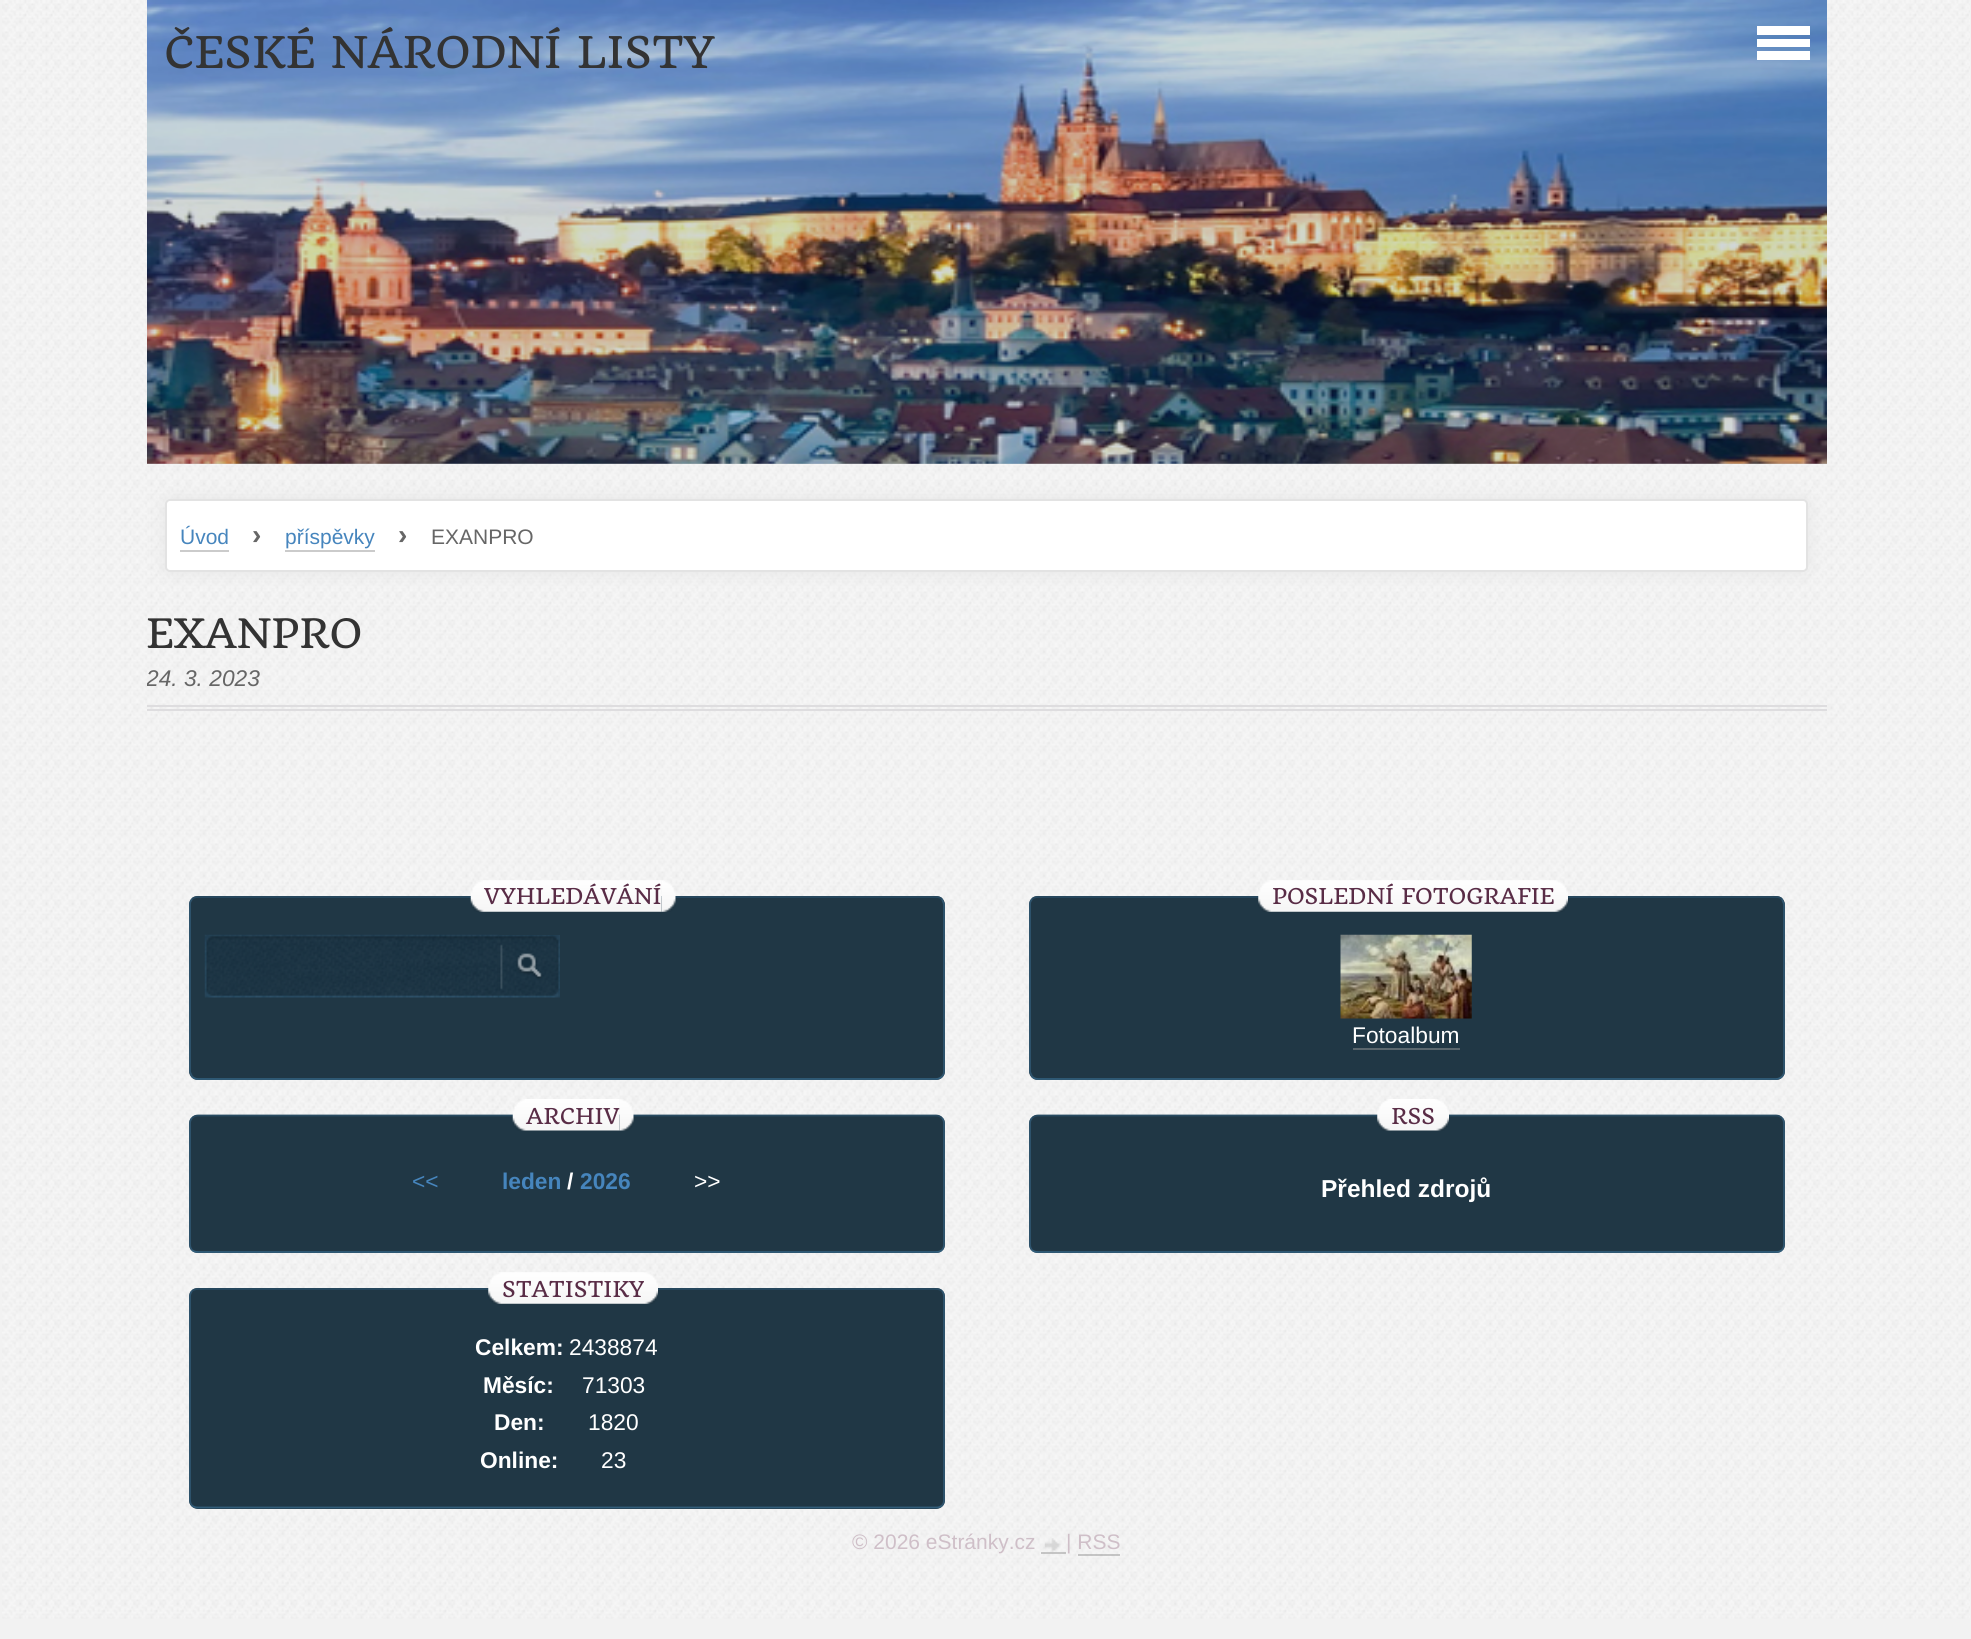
import math
import cairo


def round_path(ctx, x, y, w, h, r):
	ctx.new_sub_path()
	for i, (u, v) in enumerate([(x + w - r, y + h - r), (x + r, y + h - r), (x + r, y + r), (x + w - r, y + r)]):
		ctx.arc(u, v, r, i * math.pi / 2, (i + 1) * math.pi / 2)
	ctx.close_path()

def blur_box(ctx, x, y, w, h, r, blur, alpha):
	ctx.push_group_with_content(cairo.CONTENT_ALPHA)
	ctx.set_operator(cairo.OPERATOR_SOURCE)
	for i in range(15, -16, -2):
		e = blur * i / 6
		if min(w, h) + 2 * e > 0:
			ctx.set_source_rgba(0, 0, 0, alpha * math.erfc((i - 1) / 8.5) / 2)
			round_path(ctx, x - e, y - e, w + 2 * e, h + 2 * e, max(0, min(r + e + blur * .6, min(w, h) / 2 + e)))
			ctx.fill()
	ctx.mask(ctx.pop_group())

def paste(ctx, path, x, y, w, h):
	ctx.save()
	ctx.set_source_surface(cairo.ImageSurface.create_from_png(path), x, y)
	ctx.rectangle(x, y, w, h)
	ctx.fill()
	ctx.restore()

def draw(ctx):
	ctx.set_source_rgb(0.949, 0.949, 0.949)
	ctx.paint()
	paste(ctx, 'media/1.png', 2, 0, 1968, 1619)
	paste(ctx, 'media/2.png', 147, 0, 1680, 464)
	ctx.set_source_rgba(0.122, 0.216, 0.271, 0.2)
	ctx.rectangle(147, 0, 1680, 464)
	ctx.fill()
	ctx.select_font_face('Quando')
	ctx.set_font_size(49)
	ctx.set_source_rgb(0.2, 0.2, 0.2)
	ctx.move_to(164, 68)
	ctx.show_text('ČESKÉ NÁRODNÍ LISTY')
	ctx.set_source_rgb(0.902, 0.902, 0.902)
	blur_box(ctx, 165, 499, 1643, 73, 5, 9, 1)
	ctx.set_source_rgb(1, 1, 1)
	round_path(ctx, 166, 500, 1641, 71, 4)
	ctx.fill_preserve()
	ctx.set_source_rgb(0.89, 0.89, 0.89)
	ctx.stroke()
	ctx.select_font_face('Liberation Sans')
	ctx.set_font_size(21)
	ctx.set_source_rgb(0.275, 0.522, 0.741)
	ctx.move_to(180, 544)
	ctx.show_text('Úvod')
	ctx.set_source_rgb(0.796, 0.796, 0.796)
	ctx.rectangle(180, 550, 49, 2)
	ctx.fill()
	ctx.select_font_face('Liberation Sans', cairo.FONT_SLANT_NORMAL, cairo.FONT_WEIGHT_BOLD)
	ctx.set_font_size(28)
	ctx.set_source_rgb(0.4, 0.4, 0.4)
	ctx.move_to(252, 544)
	ctx.show_text('›')
	ctx.select_font_face('Liberation Sans')
	ctx.set_font_size(21)
	ctx.set_source_rgb(0.275, 0.522, 0.741)
	ctx.move_to(285, 544)
	ctx.show_text('příspěvky')
	ctx.set_source_rgb(0.796, 0.796, 0.796)
	ctx.rectangle(285, 550, 90, 2)
	ctx.fill()
	ctx.select_font_face('Liberation Sans', cairo.FONT_SLANT_NORMAL, cairo.FONT_WEIGHT_BOLD)
	ctx.set_font_size(28)
	ctx.set_source_rgb(0.4, 0.4, 0.4)
	ctx.move_to(398, 544)
	ctx.show_text('›')
	ctx.select_font_face('Liberation Sans')
	ctx.set_font_size(21)
	ctx.move_to(431, 544)
	ctx.show_text('EXANPRO')
	ctx.select_font_face('Quando')
	ctx.set_font_size(45.5)
	ctx.set_source_rgb(0.2, 0.2, 0.2)
	ctx.move_to(146, 648)
	ctx.show_text('EXANPRO')
	ctx.set_source_rgb(0.871, 0.867, 0.875)
	ctx.rectangle(147, 705, 1680, 2)
	ctx.fill()
	ctx.rectangle(147, 709, 1680, 2)
	ctx.fill()
	ctx.save()
	ctx.rectangle(147, 607, 1680, 132)
	ctx.clip()
	ctx.select_font_face('Liberation Sans', cairo.FONT_SLANT_ITALIC)
	ctx.set_font_size(22.75)
	ctx.set_source_rgb(0.4, 0.4, 0.4)
	ctx.move_to(146, 686)
	ctx.show_text('24. 3. 2023')
	ctx.restore()
	ctx.set_source_rgb(0.125, 0.216, 0.271)
	round_path(ctx, 189, 896, 756, 184, 9)
	ctx.fill()
	ctx.new_path()
	ctx.move_to(192, 899)
	ctx.curve_to(193.5, 897.5, 195.5, 897, 198, 897)
	ctx.line_to(936, 897)
	ctx.curve_to(938.5, 897, 940.5, 897.5, 942, 899)
	ctx.set_source_rgb(0.153, 0.29, 0.38)
	ctx.set_line_width(1.8)
	ctx.stroke()
	ctx.new_path()
	ctx.move_to(942, 899)
	ctx.line_to(944, 904)
	ctx.line_to(944, 1072)
	ctx.curve_to(944, 1073.5, 943, 1075.5, 942, 1076.5)
	ctx.set_source_rgb(0.184, 0.333, 0.435)
	ctx.stroke()
	ctx.new_path()
	ctx.move_to(942, 1076.5)
	ctx.curve_to(940.5, 1078, 938.5, 1079, 936, 1079)
	ctx.line_to(198, 1079)
	ctx.curve_to(195.5, 1079, 193.5, 1078, 192, 1076.5)
	ctx.set_source_rgb(0.192, 0.365, 0.478)
	ctx.stroke()
	ctx.new_path()
	ctx.move_to(192, 1076.5)
	ctx.line_to(190, 1072)
	ctx.line_to(190, 904)
	ctx.curve_to(190, 902, 191, 900.5, 192, 899)
	ctx.set_source_rgb(0.184, 0.333, 0.435)
	ctx.stroke()
	paste(ctx, 'media/3.png', 470, 880, 192, 32)
	ctx.set_font_size(24.5)
	ctx.set_source_rgb(0.349, 0.173, 0.275)
	ctx.move_to(484, 904)
	ctx.show_text('VYHLEDÁVÁNÍ')
	paste(ctx, 'media/4.png', 661, 880, 15, 32)
	paste(ctx, 'media/5.png', 204, 934, 295, 64)
	paste(ctx, 'media/6.png', 499, 935, 61, 63)
	ctx.set_source_rgb(0.125, 0.216, 0.271)
	round_path(ctx, 1029, 896, 756, 184, 9)
	ctx.fill()
	ctx.new_path()
	ctx.move_to(1032, 899)
	ctx.curve_to(1033.5, 897.5, 1035.5, 897, 1038, 897)
	ctx.line_to(1776, 897)
	ctx.curve_to(1778.5, 897, 1780.5, 897.5, 1782, 899)
	ctx.set_source_rgb(0.153, 0.29, 0.38)
	ctx.stroke()
	ctx.new_path()
	ctx.move_to(1782, 899)
	ctx.line_to(1784, 904)
	ctx.line_to(1784, 1072)
	ctx.curve_to(1784, 1073.5, 1783, 1075.5, 1782, 1076.5)
	ctx.set_source_rgb(0.184, 0.333, 0.435)
	ctx.stroke()
	ctx.new_path()
	ctx.move_to(1782, 1076.5)
	ctx.curve_to(1780.5, 1078, 1778.5, 1079, 1776, 1079)
	ctx.line_to(1038, 1079)
	ctx.curve_to(1035.5, 1079, 1033.5, 1078, 1032, 1076.5)
	ctx.set_source_rgb(0.192, 0.365, 0.478)
	ctx.stroke()
	ctx.new_path()
	ctx.move_to(1032, 1076.5)
	ctx.line_to(1030, 1072)
	ctx.line_to(1030, 904)
	ctx.curve_to(1030, 902, 1031, 900.5, 1032, 899)
	ctx.set_source_rgb(0.184, 0.333, 0.435)
	ctx.stroke()
	paste(ctx, 'media/7.png', 1258, 880, 296, 32)
	ctx.set_source_rgb(0.349, 0.173, 0.275)
	ctx.move_to(1272, 904)
	ctx.show_text('POSLEDNÍ FOTOGRAFIE')
	paste(ctx, 'media/8.png', 1554, 880, 14, 32)
	paste(ctx, 'media/9.png', 1340, 934, 132, 85)
	ctx.select_font_face('Liberation Sans')
	ctx.set_font_size(22.75)
	ctx.set_source_rgb(1, 1, 1)
	ctx.move_to(1352, 1043)
	ctx.show_text('Fotoalbum')
	ctx.set_source_rgb(0.357, 0.404, 0.431)
	ctx.rectangle(1353, 1048, 107, 2)
	ctx.fill()
	ctx.set_source_rgb(0.125, 0.216, 0.271)
	round_path(ctx, 189, 1115, 756, 138, 9)
	ctx.fill()
	ctx.new_path()
	ctx.move_to(192, 1118)
	ctx.curve_to(193.5, 1116.5, 195.5, 1115.5, 198, 1115.5)
	ctx.line_to(936, 1115.5)
	ctx.curve_to(938.5, 1115.5, 940.5, 1116.5, 942, 1118)
	ctx.set_source_rgb(0.153, 0.29, 0.38)
	ctx.stroke()
	ctx.new_path()
	ctx.move_to(942, 1118)
	ctx.curve_to(943.5, 1119.5, 944, 1121.5, 944, 1123.5)
	ctx.line_to(944, 1244)
	ctx.curve_to(944, 1246.5, 943.5, 1248.5, 942, 1250)
	ctx.set_source_rgb(0.184, 0.333, 0.435)
	ctx.stroke()
	ctx.new_path()
	ctx.move_to(942, 1250)
	ctx.curve_to(940.5, 1251.5, 938.5, 1252, 936, 1252)
	ctx.line_to(198, 1252)
	ctx.curve_to(195.5, 1252, 193.5, 1251.5, 192, 1250)
	ctx.set_source_rgb(0.192, 0.365, 0.478)
	ctx.stroke()
	ctx.new_path()
	ctx.move_to(192, 1250)
	ctx.curve_to(190.5, 1248.5, 190, 1246.5, 190, 1244)
	ctx.line_to(190, 1123.5)
	ctx.curve_to(190, 1121.5, 190.5, 1119.5, 192, 1118)
	ctx.set_source_rgb(0.184, 0.333, 0.435)
	ctx.stroke()
	paste(ctx, 'media/10.png', 512, 1099, 108, 32)
	ctx.select_font_face('Quando')
	ctx.set_font_size(24.5)
	ctx.set_source_rgb(0.349, 0.173, 0.275)
	ctx.move_to(526, 1124)
	ctx.show_text('ARCHIV')
	paste(ctx, 'media/11.png', 619, 1099, 15, 32)
	ctx.select_font_face('Liberation Sans')
	ctx.set_font_size(22.75)
	ctx.set_source_rgb(0.275, 0.522, 0.741)
	ctx.move_to(412, 1189)
	ctx.show_text('<<')
	ctx.select_font_face('Liberation Sans', cairo.FONT_SLANT_NORMAL, cairo.FONT_WEIGHT_BOLD)
	ctx.move_to(502, 1189)
	ctx.show_text('leden')
	ctx.set_source_rgb(1, 1, 1)
	ctx.move_to(567, 1189)
	ctx.show_text('/')
	ctx.set_source_rgb(0.275, 0.522, 0.741)
	ctx.move_to(580, 1189)
	ctx.show_text('2026')
	ctx.select_font_face('Liberation Sans')
	ctx.set_source_rgb(1, 1, 1)
	ctx.move_to(694, 1189)
	ctx.show_text('>>')
	ctx.set_source_rgb(0.125, 0.216, 0.271)
	round_path(ctx, 1029, 1115, 756, 138, 9)
	ctx.fill()
	ctx.new_path()
	ctx.move_to(1032, 1118)
	ctx.curve_to(1033.5, 1116.5, 1035.5, 1115.5, 1038, 1115.5)
	ctx.line_to(1776, 1115.5)
	ctx.curve_to(1778.5, 1115.5, 1780.5, 1116.5, 1782, 1118)
	ctx.set_source_rgb(0.153, 0.29, 0.38)
	ctx.stroke()
	ctx.new_path()
	ctx.move_to(1782, 1118)
	ctx.curve_to(1783.5, 1119.5, 1784, 1121.5, 1784, 1123.5)
	ctx.line_to(1784, 1244)
	ctx.curve_to(1784, 1246.5, 1783.5, 1248.5, 1782, 1250)
	ctx.set_source_rgb(0.184, 0.333, 0.435)
	ctx.stroke()
	ctx.new_path()
	ctx.move_to(1782, 1250)
	ctx.curve_to(1780.5, 1251.5, 1778.5, 1252, 1776, 1252)
	ctx.line_to(1038, 1252)
	ctx.curve_to(1035.5, 1252, 1033.5, 1251.5, 1032, 1250)
	ctx.set_source_rgb(0.192, 0.365, 0.478)
	ctx.stroke()
	ctx.new_path()
	ctx.move_to(1032, 1250)
	ctx.curve_to(1030.5, 1248.5, 1030, 1246.5, 1030, 1244)
	ctx.line_to(1030, 1123.5)
	ctx.curve_to(1030, 1121.5, 1030.5, 1119.5, 1032, 1118)
	ctx.set_source_rgb(0.184, 0.333, 0.435)
	ctx.stroke()
	paste(ctx, 'media/12.png', 1377, 1099, 58, 32)
	ctx.select_font_face('Quando')
	ctx.set_font_size(24.5)
	ctx.set_source_rgb(0.349, 0.173, 0.275)
	ctx.move_to(1391, 1124)
	ctx.show_text('RSS')
	paste(ctx, 'media/13.png', 1435, 1099, 14, 32)
	ctx.select_font_face('Liberation Sans', cairo.FONT_SLANT_NORMAL, cairo.FONT_WEIGHT_BOLD)
	ctx.set_source_rgb(1, 1, 1)
	ctx.move_to(1321, 1197)
	ctx.show_text('Přehled zdrojů')
	ctx.set_source_rgb(0.125, 0.216, 0.271)
	round_path(ctx, 189, 1288, 756, 221, 9)
	ctx.fill()
	ctx.new_path()
	ctx.move_to(192, 1291)
	ctx.curve_to(193.5, 1289.5, 195.5, 1289, 198, 1289)
	ctx.line_to(936, 1289)
	ctx.curve_to(938.5, 1289, 940.5, 1289.5, 942, 1291)
	ctx.set_source_rgb(0.153, 0.29, 0.38)
	ctx.stroke()
	ctx.new_path()
	ctx.move_to(942, 1291)
	ctx.curve_to(943.5, 1292.5, 944, 1294.5, 944, 1297)
	ctx.line_to(944, 1500)
	ctx.curve_to(944, 1502, 943.5, 1504, 942, 1505.5)
	ctx.set_source_rgb(0.184, 0.333, 0.435)
	ctx.stroke()
	ctx.new_path()
	ctx.move_to(942, 1505.5)
	ctx.curve_to(940.5, 1507, 938.5, 1507.5, 936, 1507.5)
	ctx.line_to(198, 1507.5)
	ctx.curve_to(195.5, 1507.5, 193.5, 1507, 192, 1505.5)
	ctx.set_source_rgb(0.192, 0.365, 0.478)
	ctx.stroke()
	ctx.new_path()
	ctx.move_to(192, 1505.5)
	ctx.curve_to(190.5, 1504, 190, 1502, 190, 1500)
	ctx.line_to(190, 1297)
	ctx.curve_to(190, 1294.5, 190.5, 1292.5, 192, 1291)
	ctx.set_source_rgb(0.184, 0.333, 0.435)
	ctx.stroke()
	paste(ctx, 'media/14.png', 488, 1272, 156, 32)
	ctx.select_font_face('Quando')
	ctx.set_source_rgb(0.349, 0.173, 0.275)
	ctx.move_to(502, 1297)
	ctx.show_text('STATISTIKY')
	paste(ctx, 'media/15.png', 644, 1272, 14, 32)
	ctx.select_font_face('Liberation Sans', cairo.FONT_SLANT_NORMAL, cairo.FONT_WEIGHT_BOLD)
	ctx.set_font_size(22.75)
	ctx.set_source_rgb(1, 1, 1)
	ctx.move_to(475, 1355)
	ctx.show_text('Celkem:')
	ctx.select_font_face('Liberation Sans')
	ctx.move_to(569, 1355)
	ctx.show_text('2438874')
	ctx.select_font_face('Liberation Sans', cairo.FONT_SLANT_NORMAL, cairo.FONT_WEIGHT_BOLD)
	ctx.move_to(483, 1393)
	ctx.show_text('Měsíc:')
	ctx.select_font_face('Liberation Sans')
	ctx.move_to(582, 1393)
	ctx.show_text('71303')
	ctx.select_font_face('Liberation Sans', cairo.FONT_SLANT_NORMAL, cairo.FONT_WEIGHT_BOLD)
	ctx.move_to(494, 1430)
	ctx.show_text('Den:')
	ctx.select_font_face('Liberation Sans')
	ctx.move_to(588, 1430)
	ctx.show_text('1820')
	ctx.select_font_face('Liberation Sans', cairo.FONT_SLANT_NORMAL, cairo.FONT_WEIGHT_BOLD)
	ctx.move_to(480, 1468)
	ctx.show_text('Online:')
	ctx.select_font_face('Liberation Sans')
	ctx.move_to(601, 1468)
	ctx.show_text('23')
	ctx.set_font_size(21)
	ctx.set_source_rgb(0.812, 0.749, 0.784)
	ctx.move_to(852, 1549)
	ctx.show_text('© 2026 eStránky.cz')
	paste(ctx, 'media/16.png', 1044, 1538, 17, 14)
	ctx.move_to(1066, 1549)
	ctx.show_text('| RSS')
	ctx.set_source_rgba(0.588, 0.588, 0.588, 0.5)
	ctx.rectangle(1041, 1552, 25, 2)
	ctx.fill()
	ctx.rectangle(1078, 1554, 42, 2)
	ctx.fill()
	ctx.set_source_rgb(1, 1, 1)
	ctx.rectangle(1757, 26, 53, 9)
	ctx.rectangle(1757, 39, 53, 8)
	ctx.rectangle(1757, 51, 53, 9)
	ctx.fill()


surface = cairo.ImageSurface(cairo.FORMAT_RGB24, 1971, 1639)
ctx = cairo.Context(surface)
options = cairo.FontOptions()
options.set_hint_metrics(cairo.HINT_METRICS_OFF)
options.set_hint_style(cairo.HINT_STYLE_NONE)
ctx.set_font_options(options)
ctx.set_miter_limit(4)
draw(ctx)
surface.write_to_png('image.png')
